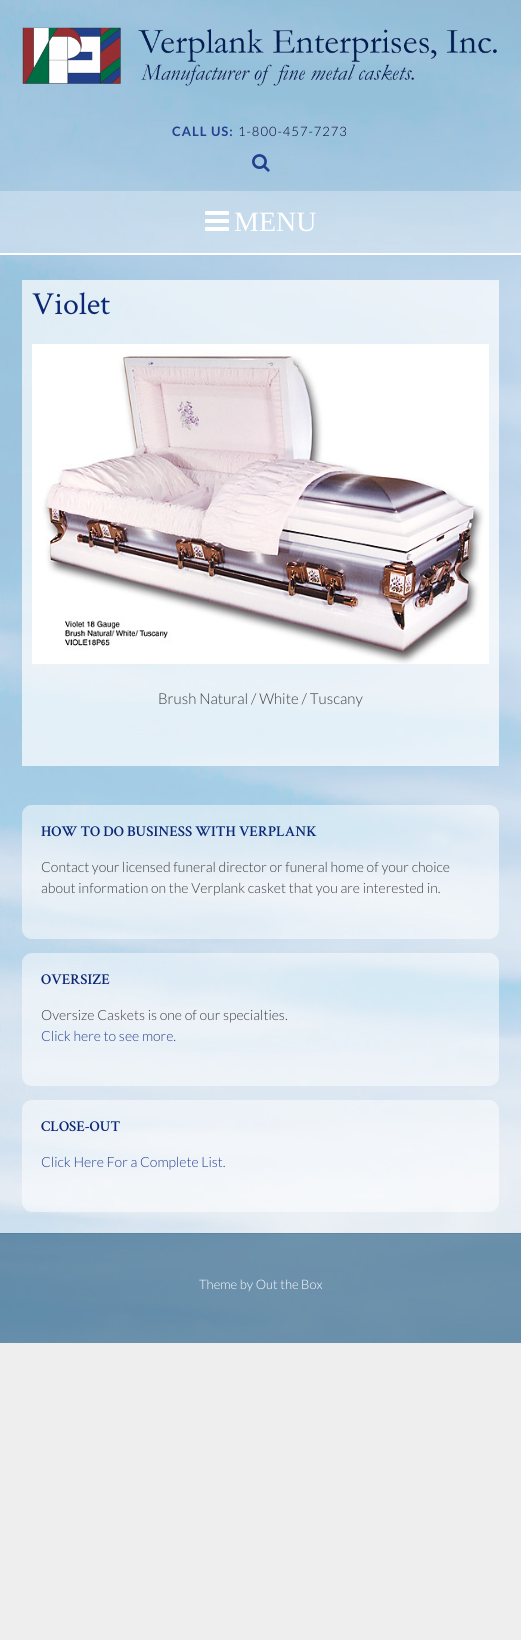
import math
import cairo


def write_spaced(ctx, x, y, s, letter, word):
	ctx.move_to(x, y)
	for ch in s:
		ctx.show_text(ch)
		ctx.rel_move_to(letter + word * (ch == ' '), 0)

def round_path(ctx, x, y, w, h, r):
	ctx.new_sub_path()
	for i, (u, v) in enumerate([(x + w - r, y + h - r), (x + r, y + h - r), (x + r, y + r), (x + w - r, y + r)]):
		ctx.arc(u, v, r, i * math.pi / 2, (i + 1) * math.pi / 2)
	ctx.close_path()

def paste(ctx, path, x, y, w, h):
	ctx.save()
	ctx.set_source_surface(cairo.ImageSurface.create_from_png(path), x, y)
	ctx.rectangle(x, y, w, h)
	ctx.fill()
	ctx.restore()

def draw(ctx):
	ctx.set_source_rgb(0.933, 0.933, 0.933)
	ctx.paint()
	paste(ctx, 'media/1.png', 0, 0, 521, 1343)
	paste(ctx, 'media/2.png', 22, 27, 475, 59)
	ctx.select_font_face('Lato', cairo.FONT_SLANT_NORMAL, cairo.FONT_WEIGHT_BOLD)
	ctx.set_font_size(13)
	ctx.set_source_rgb(0.137, 0.251, 0.561)
	write_spaced(ctx, 172, 136, 'CALL US:', 1, 0)
	ctx.select_font_face('Lato Light')
	ctx.set_source_rgb(0, 0, 0.2)
	write_spaced(ctx, 238, 136, '1-800-457-7273', 1, 0)
	paste(ctx, 'media/3.png', 252, 154, 18, 18)
	ctx.set_source_rgba(1, 1, 1, 0.3)
	ctx.rectangle(0, 191, 521, 62)
	ctx.fill()
	ctx.set_source_rgb(1, 1, 1)
	ctx.rectangle(0, 253, 521, 2)
	ctx.fill()
	paste(ctx, 'media/4.png', 205, 211, 24, 20)
	ctx.select_font_face('Liberation Serif')
	ctx.set_font_size(28)
	ctx.move_to(234, 231)
	ctx.show_text('MENU')
	ctx.set_source_rgba(1, 1, 1, 0.7)
	ctx.rectangle(22, 280, 477, 486)
	ctx.fill()
	ctx.select_font_face('Crimson Text')
	ctx.set_font_size(32)
	ctx.set_source_rgb(0.047, 0.157, 0.459)
	ctx.move_to(32, 314)
	ctx.show_text('Violet')
	paste(ctx, 'media/5.png', 32, 344, 457, 320)
	ctx.select_font_face('Lato Light')
	ctx.set_font_size(15)
	ctx.set_source_rgb(0.239, 0.239, 0.247)
	ctx.move_to(158, 704)
	ctx.show_text('Brush Natural / White / Tuscany')
	ctx.set_source_rgba(1, 1, 1, 0.5)
	round_path(ctx, 22, 805, 477, 134, 10)
	ctx.fill()
	ctx.select_font_face('Crimson Text SemiBold')
	ctx.set_source_rgb(0.047, 0.157, 0.459)
	ctx.move_to(41, 836)
	ctx.show_text('HOW TO DO BUSINESS WITH VERPLANK')
	ctx.select_font_face('Lato Light')
	ctx.set_font_size(14)
	ctx.set_source_rgb(0.239, 0.239, 0.247)
	ctx.move_to(41, 872)
	ctx.show_text('Contact your licensed funeral director or funeral home of your choice')
	ctx.move_to(41, 893)
	ctx.show_text('about information on the Verplank casket that you are interested in.')
	ctx.set_source_rgba(1, 1, 1, 0.5)
	round_path(ctx, 22, 953, 477, 133, 10)
	ctx.fill()
	ctx.select_font_face('Crimson Text SemiBold')
	ctx.set_font_size(15)
	ctx.set_source_rgb(0.047, 0.157, 0.459)
	ctx.move_to(41, 984)
	ctx.show_text('OVERSIZE')
	ctx.select_font_face('Lato Light')
	ctx.set_font_size(14)
	ctx.set_source_rgb(0.239, 0.239, 0.247)
	ctx.move_to(41, 1020)
	ctx.show_text('Oversize Caskets is one of our specialties.')
	ctx.set_source_rgb(0.137, 0.251, 0.561)
	ctx.move_to(41, 1041)
	ctx.show_text('Click here to see more.')
	ctx.set_source_rgba(1, 1, 1, 0.5)
	round_path(ctx, 22, 1100, 477, 112, 10)
	ctx.fill()
	ctx.select_font_face('Crimson Text SemiBold')
	ctx.set_font_size(15)
	ctx.set_source_rgb(0.047, 0.157, 0.459)
	ctx.move_to(41, 1131)
	ctx.show_text('CLOSE-OUT')
	ctx.select_font_face('Lato Light')
	ctx.set_font_size(14)
	ctx.set_source_rgb(0.137, 0.251, 0.561)
	ctx.move_to(41, 1167)
	ctx.show_text('Click Here For a Complete List.')
	ctx.set_source_rgba(0.098, 0.329, 0.482, 0.6)
	ctx.rectangle(0, 1233, 521, 110)
	ctx.fill()
	ctx.set_source_rgba(0, 0, 0, 0.08)
	ctx.rectangle(0, 1233, 521, 1)
	ctx.fill()
	ctx.set_font_size(13)
	ctx.set_source_rgb(1, 1, 1)
	ctx.move_to(199, 1289)
	ctx.show_text('Theme by Out the Box')


surface = cairo.ImageSurface(cairo.FORMAT_RGB24, 521, 1640)
ctx = cairo.Context(surface)
options = cairo.FontOptions()
options.set_hint_metrics(cairo.HINT_METRICS_OFF)
options.set_hint_style(cairo.HINT_STYLE_NONE)
ctx.set_font_options(options)
ctx.set_miter_limit(4)
draw(ctx)
surface.write_to_png('image.png')
